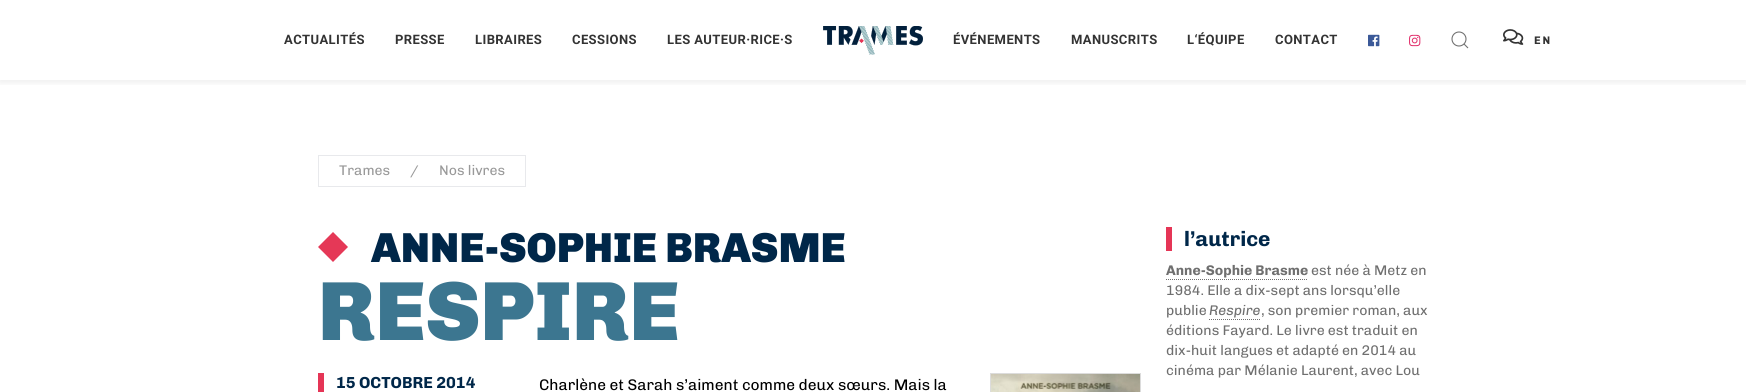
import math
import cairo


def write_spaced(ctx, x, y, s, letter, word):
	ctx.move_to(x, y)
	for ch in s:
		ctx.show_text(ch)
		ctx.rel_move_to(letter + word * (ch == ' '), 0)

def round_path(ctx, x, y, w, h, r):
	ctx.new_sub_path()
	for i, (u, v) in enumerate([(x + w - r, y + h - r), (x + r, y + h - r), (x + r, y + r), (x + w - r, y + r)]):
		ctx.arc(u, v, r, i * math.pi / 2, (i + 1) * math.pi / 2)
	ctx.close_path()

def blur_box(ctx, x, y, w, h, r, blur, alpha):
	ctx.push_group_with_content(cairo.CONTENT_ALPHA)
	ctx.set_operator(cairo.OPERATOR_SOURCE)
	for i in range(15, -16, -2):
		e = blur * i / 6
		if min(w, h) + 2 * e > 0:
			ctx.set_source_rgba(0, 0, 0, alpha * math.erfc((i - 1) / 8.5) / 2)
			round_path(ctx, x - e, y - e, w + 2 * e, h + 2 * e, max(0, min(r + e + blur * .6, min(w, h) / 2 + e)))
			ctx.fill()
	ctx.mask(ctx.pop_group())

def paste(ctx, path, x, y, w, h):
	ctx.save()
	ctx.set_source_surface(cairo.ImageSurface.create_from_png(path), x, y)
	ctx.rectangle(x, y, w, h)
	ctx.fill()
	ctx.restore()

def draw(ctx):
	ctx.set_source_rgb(1, 1, 1)
	ctx.paint()
	ctx.save()
	ctx.rectangle(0, 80, 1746, 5)
	ctx.clip()
	ctx.set_source_rgb(0, 0, 0)
	blur_box(ctx, 0, 2, 1746, 80, 0, 4, 0.08)
	ctx.restore()
	ctx.select_font_face('Roboto', cairo.FONT_SLANT_NORMAL, cairo.FONT_WEIGHT_BOLD)
	ctx.set_font_size(13)
	ctx.set_source_rgb(0.2, 0.2, 0.2)
	for x, y, s in [
		(284, 44, 'ACTUALITÉS'),
		(395, 44, 'PRESSE'),
		(475, 44, 'LIBRAIRES'),
		(572, 44, 'CESSIONS'),
		(667, 44, 'LES AUTEUR·RICE·S'),
	]:
		write_spaced(ctx, x, y, s, 0.4, 0)
	paste(ctx, 'media/1.png', 823, 26, 100, 29)
	paste(ctx, 'media/2.png', 823, 26, 100, 29)
	for x, y, s in [
		(953, 44, 'ÉVÉNEMENTS'),
		(1071, 44, 'MANUSCRITS'),
		(1187, 44, 'L‘ÉQUIPE'),
		(1275, 44, 'CONTACT'),
	]:
		write_spaced(ctx, x, y, s, 0.4, 0)
	paste(ctx, 'media/3.png', 1368, 34, 12, 13)
	paste(ctx, 'media/4.png', 1409, 34, 12, 13)
	ctx.arc(1459, 39, 7, 0, 2 * math.pi)
	ctx.set_source_rgb(0.443, 0.443, 0.443)
	ctx.set_line_width(1.1)
	ctx.stroke()
	ctx.new_path()
	ctx.move_to(1464, 44)
	ctx.line_to(1468, 48)
	ctx.close_path()
	ctx.stroke()
	paste(ctx, 'media/5.png', 1503, 29, 21, 16)
	ctx.select_font_face('Chivo', cairo.FONT_SLANT_NORMAL, cairo.FONT_WEIGHT_BOLD)
	ctx.set_font_size(11)
	ctx.set_source_rgb(0.2, 0.2, 0.2)
	write_spaced(ctx, 1534, 44, 'EN', 2, 0)
	ctx.rectangle(318.5, 155.5, 207, 31)
	ctx.set_source_rgb(0.91, 0.914, 0.925)
	ctx.set_line_width(1)
	ctx.stroke()
	ctx.select_font_face('Chivo')
	ctx.set_font_size(14)
	ctx.set_source_rgb(0.6, 0.6, 0.6)
	for x, y, s in [
		(339, 175, 'Trames'),
		(410, 175, '/'),
		(439, 175, 'Nos livres'),
	]:
		ctx.move_to(x, y)
		ctx.show_text(s)
	ctx.set_source_rgb(0.898, 0.22, 0.341)
	ctx.new_path()
	ctx.move_to(318, 247)
	ctx.line_to(333, 262)
	ctx.line_to(348, 247)
	ctx.line_to(333, 232)
	ctx.line_to(318, 247)
	ctx.fill()
	ctx.select_font_face('Chivo Black')
	ctx.set_font_size(42)
	ctx.set_source_rgb(0, 0.153, 0.286)
	ctx.move_to(371, 262)
	ctx.show_text('ANNE-SOPHIE BRASME')
	ctx.set_font_size(84)
	ctx.set_source_rgb(0.235, 0.463, 0.565)
	ctx.move_to(318, 340)
	ctx.show_text('RESPIRE')
	ctx.set_source_rgb(0.898, 0.208, 0.337)
	ctx.rectangle(318, 373, 6, 19)
	ctx.fill()
	ctx.select_font_face('Chivo', cairo.FONT_SLANT_NORMAL, cairo.FONT_WEIGHT_BOLD)
	ctx.set_font_size(16)
	ctx.set_source_rgb(0, 0.153, 0.286)
	ctx.move_to(336, 388)
	ctx.show_text('15 OCTOBRE 2014')
	ctx.select_font_face('Chivo')
	ctx.set_font_size(15.4)
	ctx.set_source_rgb(0, 0, 0)
	ctx.move_to(539, 390)
	ctx.show_text('Charlène et Sarah s’aiment comme deux sœurs. Mais la')
	ctx.rectangle(990.5, 373.5, 150, 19)
	ctx.set_source_rgb(0.863, 0.863, 0.863)
	ctx.stroke()
	paste(ctx, 'media/6.png', 991, 374, 149, 18)
	ctx.set_source_rgb(0.898, 0.208, 0.337)
	ctx.rectangle(1166, 227, 6, 24)
	ctx.fill()
	ctx.select_font_face('Chivo', cairo.FONT_SLANT_NORMAL, cairo.FONT_WEIGHT_BOLD)
	ctx.set_font_size(21)
	ctx.set_source_rgb(0, 0.153, 0.286)
	ctx.move_to(1184, 246)
	ctx.show_text('l’autrice')
	ctx.set_font_size(14)
	ctx.set_source_rgb(0.435, 0.435, 0.435)
	ctx.move_to(1166, 275)
	ctx.show_text('Anne-Sophie Brasme')
	ctx.new_path()
	ctx.move_to(1166, 279.5)
	ctx.line_to(1308, 279.5)
	ctx.set_dash([1, 1])
	ctx.stroke()
	ctx.select_font_face('Chivo')
	for x, y, s in [
		(1311, 275, 'est née à Metz en'),
		(1166, 295, '1984. Elle a dix-sept ans lorsqu’elle'),
		(1166, 315, 'publie'),
	]:
		ctx.move_to(x, y)
		ctx.show_text(s)
	ctx.select_font_face('Chivo', cairo.FONT_SLANT_ITALIC)
	ctx.move_to(1209, 315)
	ctx.show_text('Respire')
	ctx.new_path()
	ctx.move_to(1209, 319.5)
	ctx.line_to(1261, 319.5)
	ctx.stroke()
	ctx.select_font_face('Chivo')
	for x, y, s in [
		(1261, 315, ', son premier roman, aux'),
		(1166, 335, 'éditions Fayard. Le livre est traduit en'),
		(1166, 355, 'dix-huit langues et adapté en 2014 au'),
		(1166, 375, 'cinéma par Mélanie Laurent, avec Lou'),
	]:
		ctx.move_to(x, y)
		ctx.show_text(s)


surface = cairo.ImageSurface(cairo.FORMAT_RGB24, 1746, 392)
ctx = cairo.Context(surface)
options = cairo.FontOptions()
options.set_hint_metrics(cairo.HINT_METRICS_OFF)
options.set_hint_style(cairo.HINT_STYLE_NONE)
ctx.set_font_options(options)
ctx.set_miter_limit(4)
draw(ctx)
surface.write_to_png('image.png')
